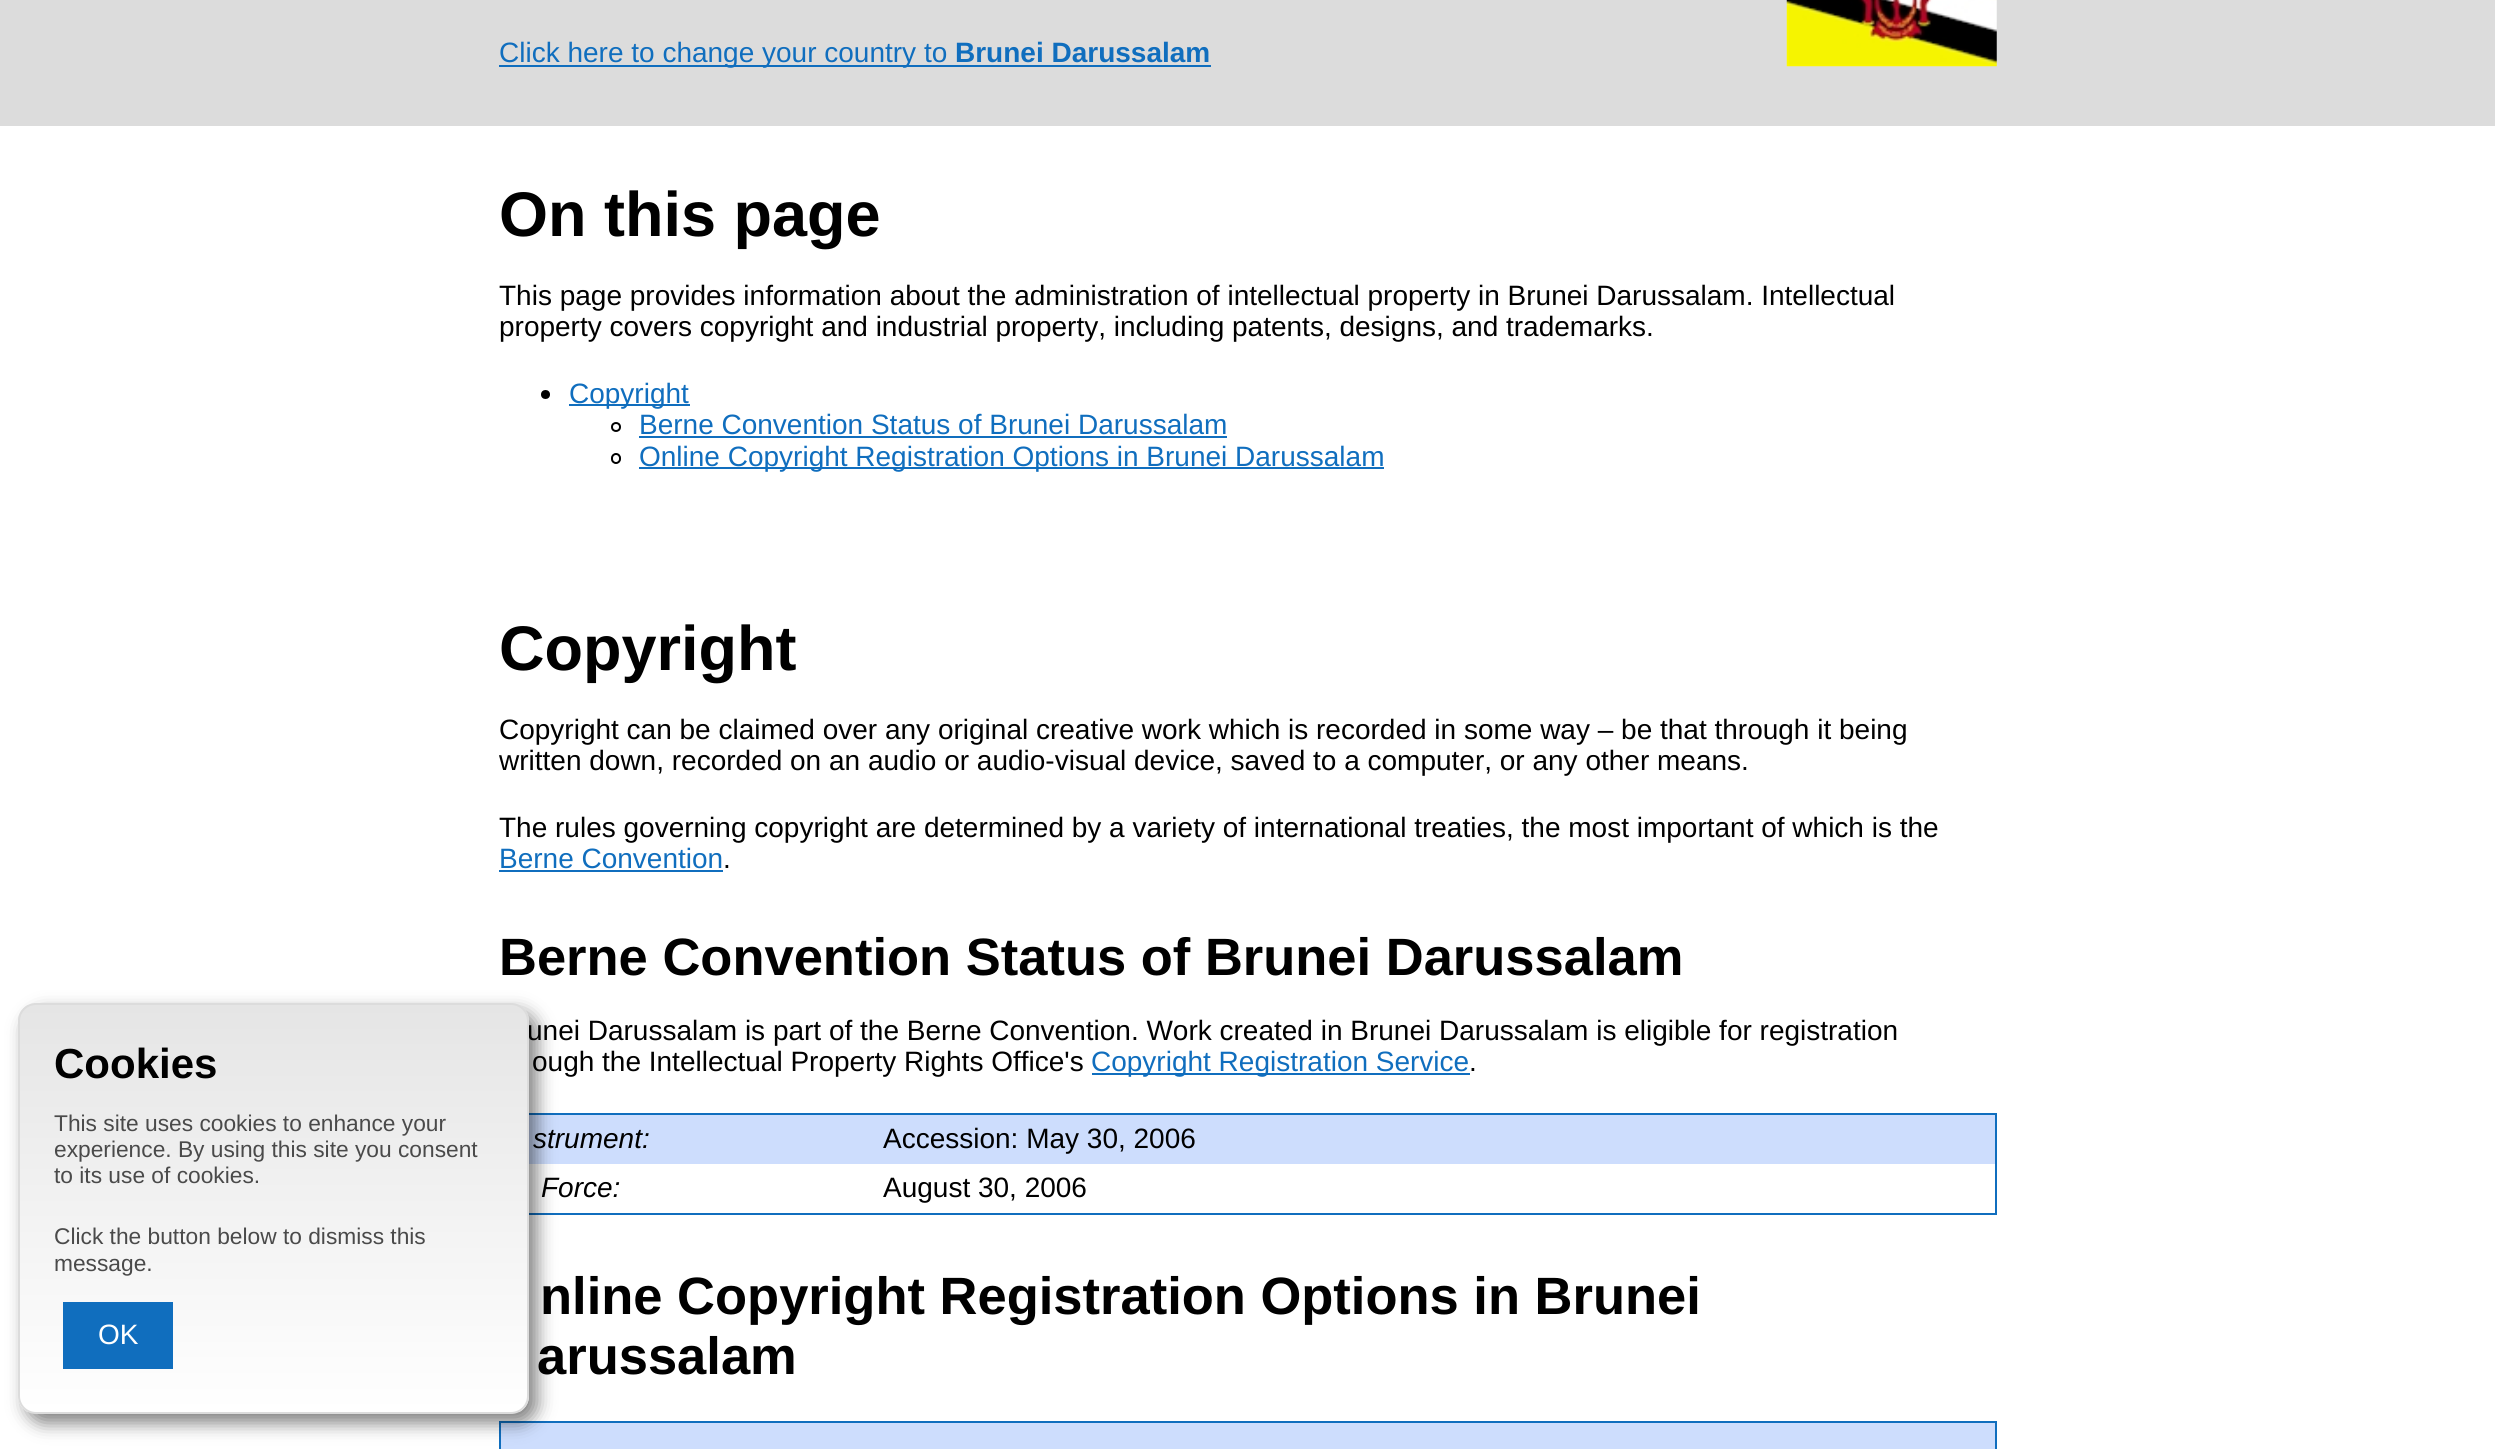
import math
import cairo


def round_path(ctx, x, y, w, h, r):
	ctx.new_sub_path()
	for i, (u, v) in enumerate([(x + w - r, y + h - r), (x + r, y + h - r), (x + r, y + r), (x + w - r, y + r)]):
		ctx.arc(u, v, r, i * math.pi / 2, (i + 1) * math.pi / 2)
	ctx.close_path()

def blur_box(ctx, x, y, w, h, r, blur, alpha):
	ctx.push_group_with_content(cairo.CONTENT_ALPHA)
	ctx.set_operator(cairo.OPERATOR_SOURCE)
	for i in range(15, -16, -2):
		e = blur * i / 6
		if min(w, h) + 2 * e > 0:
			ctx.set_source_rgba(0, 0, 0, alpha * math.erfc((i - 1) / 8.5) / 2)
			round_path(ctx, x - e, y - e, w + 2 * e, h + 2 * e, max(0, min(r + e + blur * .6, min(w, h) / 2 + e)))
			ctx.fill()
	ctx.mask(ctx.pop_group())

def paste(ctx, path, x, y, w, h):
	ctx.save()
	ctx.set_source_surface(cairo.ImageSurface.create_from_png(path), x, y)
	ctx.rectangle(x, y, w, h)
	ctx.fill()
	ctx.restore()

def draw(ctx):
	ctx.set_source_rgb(1, 1, 1)
	ctx.paint()
	ctx.set_source_rgb(0.063, 0.431, 0.745)
	ctx.rectangle(529, 1113, 1468, 2)
	ctx.rectangle(1995, 1113, 2, 102)
	ctx.rectangle(529, 1213, 1468, 2)
	ctx.fill()
	ctx.set_source_rgb(0.804, 0.867, 0.992)
	ctx.rectangle(529, 1115, 1466, 49)
	ctx.fill()
	ctx.set_source_rgb(0.063, 0.431, 0.745)
	ctx.rectangle(499, 1421, 1498, 2)
	ctx.rectangle(499, 1421, 2, 28)
	ctx.fill()
	ctx.set_source_rgb(0.804, 0.867, 0.992)
	ctx.rectangle(501, 1423, 1494, 26)
	ctx.fill()
	ctx.set_source_rgb(0, 0, 0)
	blur_box(ctx, 26, 1012, 511, 411, 18, 9, 0.5)
	ctx.select_font_face('Liberation Sans')
	ctx.set_font_size(28)
	ctx.set_source_rgb(0, 0, 0)
	ctx.move_to(527, 1040)
	ctx.show_text('unei Darussalam is part of the Berne Convention. Work created in Brunei Darussalam is eligible for registration')
	ctx.save()
	round_path(ctx, 18, 1003, 511, 411, 18)
	ctx.clip()
	gradient = cairo.LinearGradient(273, 1005, 273, 1412)
	gradient.add_color_stop_rgba(0, 0.898, 0.898, 0.898, 1)
	gradient.add_color_stop_rgba(1, 1, 1, 1, 1)
	ctx.set_source(gradient)
	ctx.rectangle(18, 1005, 511, 407)
	ctx.fill()
	ctx.restore()
	round_path(ctx, 19, 1004, 509, 409, 17)
	ctx.set_source_rgb(0.863, 0.863, 0.863)
	ctx.stroke()
	ctx.select_font_face('Liberation Sans', cairo.FONT_SLANT_NORMAL, cairo.FONT_WEIGHT_BOLD)
	ctx.set_font_size(42)
	ctx.set_source_rgb(0, 0, 0)
	ctx.move_to(54, 1078)
	ctx.show_text('Cookies')
	ctx.select_font_face('Liberation Sans')
	ctx.set_font_size(22.75)
	ctx.set_source_rgb(0.29, 0.29, 0.29)
	for x, y, s in [
		(54, 1131, 'This site uses cookies to enhance your'),
		(54, 1157, 'experience. By using this site you consent'),
		(54, 1183, 'to its use of cookies.'),
		(54, 1244, 'Click the button below to dismiss this'),
		(54, 1271, 'message.'),
	]:
		ctx.move_to(x, y)
		ctx.show_text(s)
	ctx.set_source_rgb(0.063, 0.431, 0.745)
	ctx.rectangle(63, 1302, 110, 67)
	ctx.fill()
	ctx.set_font_size(28)
	ctx.set_source_rgb(1, 1, 1)
	ctx.move_to(98, 1344)
	ctx.show_text('OK')
	ctx.set_source_rgb(0.863, 0.863, 0.863)
	ctx.rectangle(0, 0, 2495, 126)
	ctx.fill()
	ctx.set_source_rgb(0.063, 0.431, 0.745)
	ctx.rectangle(499, 65, 712, 2)
	ctx.fill()
	ctx.move_to(499, 62)
	ctx.show_text('Click here to change your country to')
	ctx.select_font_face('Liberation Sans', cairo.FONT_SLANT_NORMAL, cairo.FONT_WEIGHT_BOLD)
	ctx.move_to(955, 62)
	ctx.show_text('Brunei Darussalam')
	paste(ctx, 'media/1.png', 1786, 0, 211, 67)
	ctx.set_font_size(63)
	ctx.set_source_rgb(0, 0, 0)
	ctx.move_to(499, 236)
	ctx.show_text('On this page')
	ctx.select_font_face('Liberation Sans')
	ctx.set_font_size(28)
	ctx.move_to(499, 305)
	ctx.show_text('This page provides information about the administration of intellectual property in Brunei Darussalam. Intellectual')
	ctx.move_to(499, 336)
	ctx.show_text('property covers copyright and industrial property, including patents, designs, and trademarks.')
	ctx.new_path()
	ctx.arc(545.5, 394.5, 4.5, 0, 2 * math.pi)
	ctx.fill()
	ctx.set_source_rgb(0.063, 0.431, 0.745)
	ctx.rectangle(569, 404, 121, 2)
	ctx.fill()
	ctx.move_to(569, 403)
	ctx.show_text('Copyright')
	ctx.new_path()
	ctx.arc(616, 427, 4, 0, 2 * math.pi)
	ctx.set_source_rgb(0, 0, 0)
	ctx.stroke()
	ctx.set_source_rgb(0.063, 0.431, 0.745)
	ctx.move_to(639, 434)
	ctx.show_text('Berne Convention Status of Brunei Darussalam')
	ctx.rectangle(639, 436, 588, 2)
	ctx.fill()
	round_path(ctx, 612, 454, 8, 9, 4)
	ctx.set_source_rgb(0, 0, 0)
	ctx.stroke()
	ctx.set_source_rgb(0.063, 0.431, 0.745)
	ctx.rectangle(639, 467, 745, 2)
	ctx.fill()
	ctx.move_to(639, 466)
	ctx.show_text('Online Copyright Registration Options in Brunei Darussalam')
	ctx.select_font_face('Liberation Sans', cairo.FONT_SLANT_NORMAL, cairo.FONT_WEIGHT_BOLD)
	ctx.set_font_size(63)
	ctx.set_source_rgb(0, 0, 0)
	ctx.move_to(499, 670)
	ctx.show_text('Copyright')
	ctx.select_font_face('Liberation Sans')
	ctx.set_font_size(28)
	for x, y, s in [
		(499, 739, 'Copyright can be claimed over any original creative work which is recorded in some way – be that through it being'),
		(499, 770, 'written down, recorded on an audio or audio-visual device, saved to a computer, or any other means.'),
		(499, 837, 'The rules governing copyright are determined by a variety of international treaties, the most important of which is the'),
	]:
		ctx.move_to(x, y)
		ctx.show_text(s)
	ctx.set_source_rgb(0.063, 0.431, 0.745)
	ctx.move_to(499, 868)
	ctx.show_text('Berne Convention')
	ctx.rectangle(499, 870, 224, 2)
	ctx.fill()
	ctx.set_source_rgb(0, 0, 0)
	ctx.move_to(723, 868)
	ctx.show_text('.')
	ctx.select_font_face('Liberation Sans', cairo.FONT_SLANT_NORMAL, cairo.FONT_WEIGHT_BOLD)
	ctx.set_font_size(52.5)
	ctx.move_to(499, 975)
	ctx.show_text('Berne Convention Status of Brunei Darussalam')
	ctx.select_font_face('Liberation Sans')
	ctx.set_font_size(28)
	ctx.move_to(532, 1071)
	ctx.show_text('ough the Intellectual Property Rights Office\'s')
	ctx.set_source_rgb(0.063, 0.431, 0.745)
	ctx.rectangle(1092, 1073, 378, 2)
	ctx.fill()
	ctx.move_to(1091, 1071)
	ctx.show_text('Copyright Registration Service')
	ctx.set_source_rgb(0, 0, 0)
	ctx.move_to(1469, 1071)
	ctx.show_text('.')
	ctx.select_font_face('Liberation Sans', cairo.FONT_SLANT_ITALIC)
	ctx.move_to(533, 1148)
	ctx.show_text('strument:')
	ctx.select_font_face('Liberation Sans')
	ctx.move_to(883, 1148)
	ctx.show_text('Accession: May 30, 2006')
	ctx.select_font_face('Liberation Sans', cairo.FONT_SLANT_ITALIC)
	ctx.move_to(541, 1197)
	ctx.show_text('Force:')
	ctx.select_font_face('Liberation Sans')
	ctx.move_to(883, 1197)
	ctx.show_text('August 30, 2006')
	ctx.select_font_face('Liberation Sans', cairo.FONT_SLANT_NORMAL, cairo.FONT_WEIGHT_BOLD)
	ctx.set_font_size(52.5)
	ctx.move_to(540, 1314)
	ctx.show_text('nline Copyright Registration Options in Brunei')
	ctx.move_to(537, 1374)
	ctx.show_text('arussalam')
	ctx.set_source_rgb(0.063, 0.431, 0.745)
	ctx.rectangle(1995, 1421, 2, 28)
	ctx.fill()


surface = cairo.ImageSurface(cairo.FORMAT_RGB24, 2495, 1449)
ctx = cairo.Context(surface)
options = cairo.FontOptions()
options.set_hint_metrics(cairo.HINT_METRICS_OFF)
options.set_hint_style(cairo.HINT_STYLE_NONE)
ctx.set_font_options(options)
ctx.set_miter_limit(4)
draw(ctx)
surface.write_to_png('image.png')
